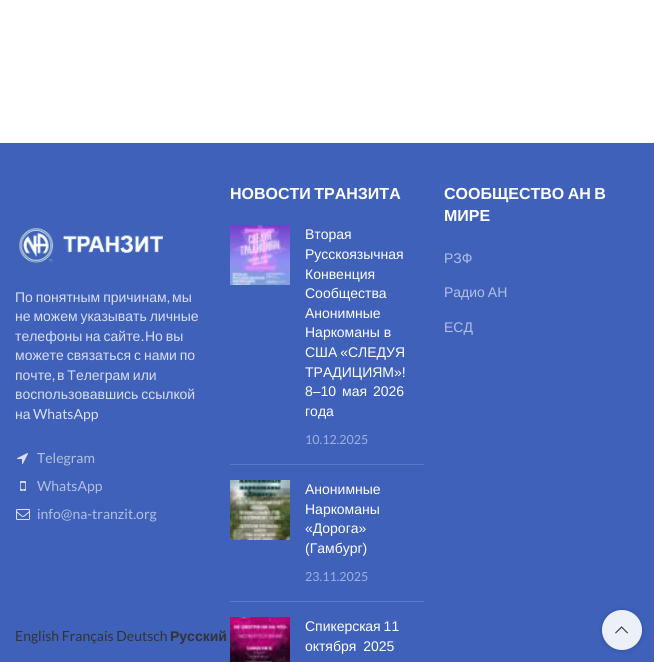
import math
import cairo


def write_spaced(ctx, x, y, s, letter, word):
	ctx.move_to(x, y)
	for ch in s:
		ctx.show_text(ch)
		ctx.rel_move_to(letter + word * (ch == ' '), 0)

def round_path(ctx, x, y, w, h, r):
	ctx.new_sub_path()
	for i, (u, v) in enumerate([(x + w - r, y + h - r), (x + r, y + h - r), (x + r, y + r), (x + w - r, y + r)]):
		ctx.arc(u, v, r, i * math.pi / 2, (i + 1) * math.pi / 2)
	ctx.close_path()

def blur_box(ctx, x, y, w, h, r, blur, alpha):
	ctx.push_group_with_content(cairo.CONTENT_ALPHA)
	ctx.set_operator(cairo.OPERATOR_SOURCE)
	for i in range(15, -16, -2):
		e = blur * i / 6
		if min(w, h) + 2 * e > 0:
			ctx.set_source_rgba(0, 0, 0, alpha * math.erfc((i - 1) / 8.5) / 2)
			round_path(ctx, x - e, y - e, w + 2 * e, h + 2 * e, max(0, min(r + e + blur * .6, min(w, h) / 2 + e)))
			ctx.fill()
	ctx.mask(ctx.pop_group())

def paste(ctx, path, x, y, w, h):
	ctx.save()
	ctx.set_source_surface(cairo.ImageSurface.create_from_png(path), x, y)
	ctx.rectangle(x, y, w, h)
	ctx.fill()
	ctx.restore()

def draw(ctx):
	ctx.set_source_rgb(1, 1, 1)
	ctx.paint()
	ctx.set_source_rgb(0.247, 0.38, 0.729)
	ctx.rectangle(0, 143, 654, 519)
	ctx.fill()
	ctx.select_font_face('Liberation Sans', cairo.FONT_SLANT_NORMAL, cairo.FONT_WEIGHT_BOLD)
	ctx.set_font_size(16)
	ctx.set_source_rgb(1, 1, 1)
	write_spaced(ctx, 230, 199, 'НОВОСТИ ТРАНЗИТА', 0, -1)
	ctx.set_source_rgb(0.361, 0.475, 0.769)
	ctx.rectangle(230, 464, 194, 1)
	ctx.fill()
	paste(ctx, 'media/1.png', 230, 225, 60, 60)
	ctx.select_font_face('Liberation Sans')
	ctx.set_font_size(14)
	ctx.set_source_rgb(1, 1, 1)
	for x, y, s in [
		(305, 239, 'Вторая'),
		(305, 259, 'Русскоязычная'),
		(305, 279, 'Конвенция'),
		(305, 298, 'Сообщества'),
		(305, 318, 'Анонимные'),
		(305, 337, 'Наркоманы в'),
	]:
		ctx.move_to(x, y)
		ctx.show_text(s)
	write_spaced(ctx, 305, 357, 'США «СЛЕДУЯ', 0, -1)
	ctx.move_to(305, 377)
	ctx.show_text('ТРАДИЦИЯМ»!')
	write_spaced(ctx, 305, 396, '8–10 мая 2026', 0, 2)
	ctx.move_to(305, 416)
	ctx.show_text('года')
	ctx.select_font_face('Lato')
	ctx.set_font_size(12.5)
	ctx.set_source_rgb(0.624, 0.69, 0.867)
	ctx.move_to(305, 444)
	ctx.show_text('10.12.2025')
	ctx.set_source_rgb(0.361, 0.475, 0.769)
	ctx.rectangle(230, 601, 194, 1)
	ctx.fill()
	paste(ctx, 'media/2.png', 230, 480, 60, 60)
	ctx.select_font_face('Liberation Sans')
	ctx.set_font_size(14)
	ctx.set_source_rgb(1, 1, 1)
	for x, y, s in [
		(305, 494, 'Анонимные'),
		(305, 514, 'Наркоманы'),
		(305, 533, '«Дорога»'),
		(305, 553, '(Гамбург)'),
	]:
		ctx.move_to(x, y)
		ctx.show_text(s)
	ctx.select_font_face('Lato')
	ctx.set_font_size(12.5)
	ctx.set_source_rgb(0.624, 0.69, 0.867)
	ctx.move_to(305, 581)
	ctx.show_text('23.11.2025')
	paste(ctx, 'media/3.png', 230, 617, 60, 45)
	ctx.select_font_face('Liberation Sans')
	ctx.set_font_size(14)
	ctx.set_source_rgb(1, 1, 1)
	write_spaced(ctx, 305, 631, 'Спикерская 11', 0, -1)
	write_spaced(ctx, 305, 651, 'октября 2025', 0, 3)
	ctx.select_font_face('Liberation Sans', cairo.FONT_SLANT_NORMAL, cairo.FONT_WEIGHT_BOLD)
	ctx.set_font_size(16)
	write_spaced(ctx, 444, 199, 'СООБЩЕСТВО АН В', 0, -1)
	ctx.move_to(444, 221)
	ctx.show_text('МИРЕ')
	ctx.select_font_face('Liberation Sans')
	ctx.set_font_size(14)
	ctx.set_source_rgb(0.698, 0.753, 0.89)
	ctx.move_to(444, 263)
	ctx.show_text('РЗФ')
	write_spaced(ctx, 444, 297, 'Радио АН', 0, -1)
	ctx.move_to(444, 332)
	ctx.show_text('ЕСД')
	paste(ctx, 'media/4.png', 19, 228, 144, 35)
	ctx.set_source_rgb(0.851, 0.875, 0.945)
	write_spaced(ctx, 15, 302, 'По понятным причинам', 0, -1)
	ctx.select_font_face('Lato')
	ctx.move_to(167, 302)
	ctx.show_text(',')
	ctx.select_font_face('Liberation Sans')
	ctx.move_to(172, 302)
	ctx.show_text('мы')
	write_spaced(ctx, 15, 321, 'не можем указывать личные', 0, -1)
	write_spaced(ctx, 15, 341, 'телефоны на сайте', 0, -1)
	ctx.select_font_face('Lato')
	ctx.move_to(141, 341)
	ctx.show_text('.')
	ctx.select_font_face('Liberation Sans')
	write_spaced(ctx, 145, 341, 'Но вы', 0, -1)
	write_spaced(ctx, 15, 360, 'можете связаться с нами по', 0, -1)
	ctx.move_to(15, 380)
	ctx.show_text('почте')
	ctx.select_font_face('Lato')
	ctx.move_to(52, 380)
	ctx.show_text(',')
	ctx.select_font_face('Liberation Sans')
	write_spaced(ctx, 57, 380, 'в Телеграм или', 0, -1)
	write_spaced(ctx, 15, 399, 'воспользовавшись ссылкой', 0, -1)
	ctx.move_to(15, 419)
	ctx.show_text('на')
	ctx.select_font_face('Lato')
	ctx.move_to(33, 419)
	ctx.show_text('WhatsApp')
	paste(ctx, 'media/5.png', 17, 453, 11, 11)
	ctx.set_source_rgb(0.698, 0.753, 0.89)
	ctx.move_to(37, 463)
	ctx.show_text('Telegram')
	paste(ctx, 'media/6.png', 20, 481, 6, 10)
	ctx.move_to(37, 491)
	ctx.show_text('WhatsApp')
	paste(ctx, 'media/7.png', 16, 509, 14, 11)
	ctx.move_to(37, 519)
	ctx.show_text('info@na-tranzit.org')
	ctx.save()
	ctx.set_fill_rule(cairo.FILL_RULE_EVEN_ODD)
	ctx.new_path()
	ctx.move_to(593, 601)
	ctx.line_to(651, 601)
	ctx.line_to(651, 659)
	ctx.line_to(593, 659)
	ctx.close_path()
	ctx.move_to(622, 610)
	ctx.curve_to(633, 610, 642, 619, 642, 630)
	ctx.curve_to(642, 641, 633, 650, 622, 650)
	ctx.curve_to(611, 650, 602, 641, 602, 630)
	ctx.curve_to(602, 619, 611, 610, 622, 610)
	ctx.close_path()
	ctx.clip()
	ctx.set_source_rgb(0, 0, 0)
	blur_box(ctx, 602, 610, 40, 40, 20, 2.5, 0.17)
	ctx.restore()
	ctx.set_source_rgba(1, 1, 1, 0.9)
	ctx.arc(622, 630, 20, 0, 2 * math.pi)
	ctx.fill()
	paste(ctx, 'media/8.png', 615, 626, 13, 8)
	ctx.set_source_rgb(0.2, 0.2, 0.2)
	ctx.move_to(15, 641)
	ctx.show_text('English Français Deutsch')
	ctx.select_font_face('Liberation Sans', cairo.FONT_SLANT_NORMAL, cairo.FONT_WEIGHT_BOLD)
	ctx.move_to(170, 641)
	ctx.show_text('Русский')


surface = cairo.ImageSurface(cairo.FORMAT_RGB24, 654, 662)
ctx = cairo.Context(surface)
options = cairo.FontOptions()
options.set_hint_metrics(cairo.HINT_METRICS_OFF)
options.set_hint_style(cairo.HINT_STYLE_NONE)
ctx.set_font_options(options)
ctx.set_miter_limit(4)
draw(ctx)
surface.write_to_png('image.png')
